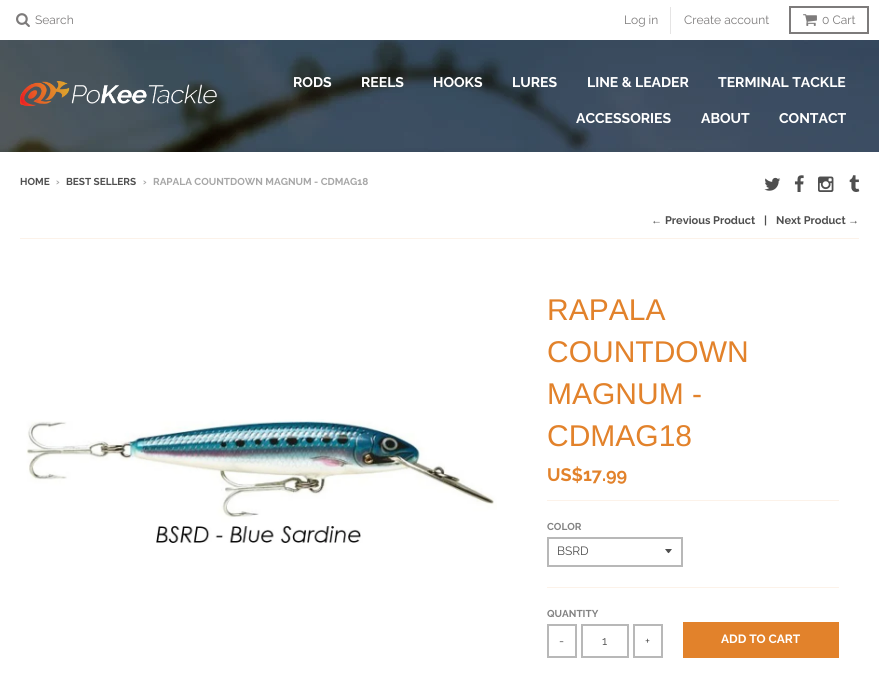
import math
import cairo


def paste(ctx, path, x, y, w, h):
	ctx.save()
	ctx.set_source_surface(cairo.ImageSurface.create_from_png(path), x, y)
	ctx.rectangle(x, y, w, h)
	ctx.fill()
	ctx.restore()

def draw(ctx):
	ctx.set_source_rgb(1, 1, 1)
	ctx.paint()
	paste(ctx, 'media/1.png', 16, 13, 14, 14)
	ctx.select_font_face('Raleway')
	ctx.set_font_size(12)
	ctx.set_source_rgb(0.49, 0.482, 0.482)
	ctx.move_to(35, 24)
	ctx.show_text('Search')
	ctx.set_source_rgb(0.898, 0.894, 0.894)
	ctx.rectangle(670, 7, 1, 27)
	ctx.fill()
	ctx.set_source_rgb(0.49, 0.482, 0.482)
	ctx.move_to(624, 24)
	ctx.show_text('Log in')
	ctx.move_to(684, 24)
	ctx.show_text('Create account')
	ctx.rectangle(790, 7, 78, 26)
	ctx.stroke()
	paste(ctx, 'media/2.png', 803, 14, 14, 12)
	ctx.move_to(822, 24)
	ctx.show_text('0 Cart')
	paste(ctx, 'media/3.png', 0, 40, 879, 112)
	paste(ctx, 'media/4.png', 20, 81, 197, 26)
	ctx.select_font_face('Raleway', cairo.FONT_SLANT_NORMAL, cairo.FONT_WEIGHT_BOLD)
	ctx.set_font_size(14)
	ctx.set_source_rgb(1, 1, 1)
	for x, y, s in [
		(293, 87, 'RODS'),
		(361, 87, 'REELS'),
		(433, 87, 'HOOKS'),
		(512, 87, 'LURES'),
		(587, 87, 'LINE & LEADER'),
		(718, 87, 'TERMINAL TACKLE'),
		(576, 123, 'ACCESSORIES'),
		(701, 123, 'ABOUT'),
		(779, 123, 'CONTACT'),
	]:
		ctx.move_to(x, y)
		ctx.show_text(s)
	ctx.set_font_size(10)
	ctx.set_source_rgb(0.31, 0.31, 0.31)
	ctx.move_to(20, 185)
	ctx.show_text('HOME')
	ctx.set_source_rgb(0.655, 0.655, 0.655)
	ctx.move_to(56, 185)
	ctx.show_text('›')
	ctx.set_source_rgb(0.31, 0.31, 0.31)
	ctx.move_to(66, 185)
	ctx.show_text('BEST SELLERS')
	ctx.set_source_rgb(0.655, 0.655, 0.655)
	ctx.move_to(143, 185)
	ctx.show_text('›')
	ctx.move_to(153, 185)
	ctx.show_text('RAPALA COUNTDOWN MAGNUM - CDMAG18')
	paste(ctx, 'media/5.png', 764, 177, 17, 14)
	paste(ctx, 'media/6.png', 794, 175, 10, 17)
	paste(ctx, 'media/7.png', 818, 176, 16, 16)
	paste(ctx, 'media/8.png', 849, 175, 11, 17)
	ctx.set_source_rgb(0.988, 0.949, 0.914)
	ctx.rectangle(20, 238, 839, 1)
	ctx.fill()
	ctx.select_font_face('Liberation Sans', cairo.FONT_SLANT_NORMAL, cairo.FONT_WEIGHT_BOLD)
	ctx.set_font_size(11)
	ctx.set_source_rgb(0.31, 0.31, 0.31)
	ctx.move_to(651, 224)
	ctx.show_text('←')
	ctx.select_font_face('Raleway', cairo.FONT_SLANT_NORMAL, cairo.FONT_WEIGHT_BOLD)
	for x, y, s in [
		(665, 224, 'Previous Product'),
		(764, 224, '|'),
		(776, 224, 'Next Product'),
	]:
		ctx.move_to(x, y)
		ctx.show_text(s)
	ctx.select_font_face('Liberation Sans', cairo.FONT_SLANT_NORMAL, cairo.FONT_WEIGHT_BOLD)
	ctx.move_to(848, 224)
	ctx.show_text('→')
	paste(ctx, 'media/9.png', 26, 419, 471, 124)
	ctx.select_font_face('Liberation Sans')
	ctx.set_font_size(30)
	ctx.set_source_rgb(0.886, 0.51, 0.169)
	for x, y, s in [
		(547, 320, 'RAPALA'),
		(547, 362, 'COUNTDOWN'),
		(547, 404, 'MAGNUM -'),
		(547, 446, 'CDMAG18'),
	]:
		ctx.move_to(x, y)
		ctx.show_text(s)
	ctx.set_source_rgb(0.988, 0.949, 0.914)
	ctx.rectangle(547, 500, 292, 1)
	ctx.fill()
	ctx.select_font_face('Raleway', cairo.FONT_SLANT_NORMAL, cairo.FONT_WEIGHT_BOLD)
	ctx.set_font_size(18)
	ctx.set_source_rgb(0.886, 0.51, 0.169)
	ctx.move_to(547, 481)
	ctx.show_text('US$17.99')
	ctx.set_source_rgb(0.988, 0.949, 0.914)
	ctx.rectangle(547, 587, 292, 1)
	ctx.fill()
	ctx.set_font_size(10)
	ctx.set_source_rgb(0.514, 0.514, 0.514)
	ctx.move_to(547, 530)
	ctx.show_text('COLOR')
	ctx.set_source_rgb(0.31, 0.31, 0.31)
	ctx.new_path()
	ctx.move_to(665, 549)
	ctx.curve_to(669.5, 554.5, 667.5, 554.5, 672, 549)
	ctx.close_path()
	ctx.fill()
	ctx.rectangle(548, 538, 134, 28)
	ctx.set_source_rgb(0.722, 0.722, 0.722)
	ctx.stroke()
	ctx.select_font_face('Raleway')
	ctx.set_font_size(12)
	ctx.set_source_rgb(0.31, 0.31, 0.31)
	ctx.move_to(557, 555)
	ctx.show_text('BSRD')
	ctx.select_font_face('Raleway', cairo.FONT_SLANT_NORMAL, cairo.FONT_WEIGHT_BOLD)
	ctx.set_font_size(10)
	ctx.set_source_rgb(0.514, 0.514, 0.514)
	ctx.move_to(547, 617)
	ctx.show_text('QUANTITY')
	ctx.rectangle(548, 625, 28, 32)
	ctx.set_source_rgb(0.722, 0.722, 0.722)
	ctx.stroke()
	ctx.select_font_face('Raleway')
	ctx.set_font_size(12)
	ctx.set_source_rgb(0.31, 0.31, 0.31)
	ctx.move_to(559, 645)
	ctx.show_text('-')
	ctx.rectangle(582, 625, 46, 32)
	ctx.set_source_rgb(0.722, 0.722, 0.722)
	ctx.stroke()
	ctx.set_source_rgb(0.31, 0.31, 0.31)
	ctx.move_to(602, 645)
	ctx.show_text('1')
	ctx.rectangle(634, 625, 28, 32)
	ctx.set_source_rgb(0.722, 0.722, 0.722)
	ctx.stroke()
	ctx.set_source_rgb(0.31, 0.31, 0.31)
	ctx.move_to(645, 645)
	ctx.show_text('+')
	ctx.set_source_rgb(0.886, 0.51, 0.169)
	ctx.rectangle(683, 622, 156, 36)
	ctx.fill()
	ctx.select_font_face('Raleway', cairo.FONT_SLANT_NORMAL, cairo.FONT_WEIGHT_BOLD)
	ctx.set_source_rgb(1, 1, 1)
	ctx.move_to(721, 643)
	ctx.show_text('ADD TO CART')


surface = cairo.ImageSurface(cairo.FORMAT_RGB24, 879, 673)
ctx = cairo.Context(surface)
options = cairo.FontOptions()
options.set_hint_metrics(cairo.HINT_METRICS_OFF)
options.set_hint_style(cairo.HINT_STYLE_NONE)
ctx.set_font_options(options)
ctx.set_miter_limit(4)
draw(ctx)
surface.write_to_png('image.png')
